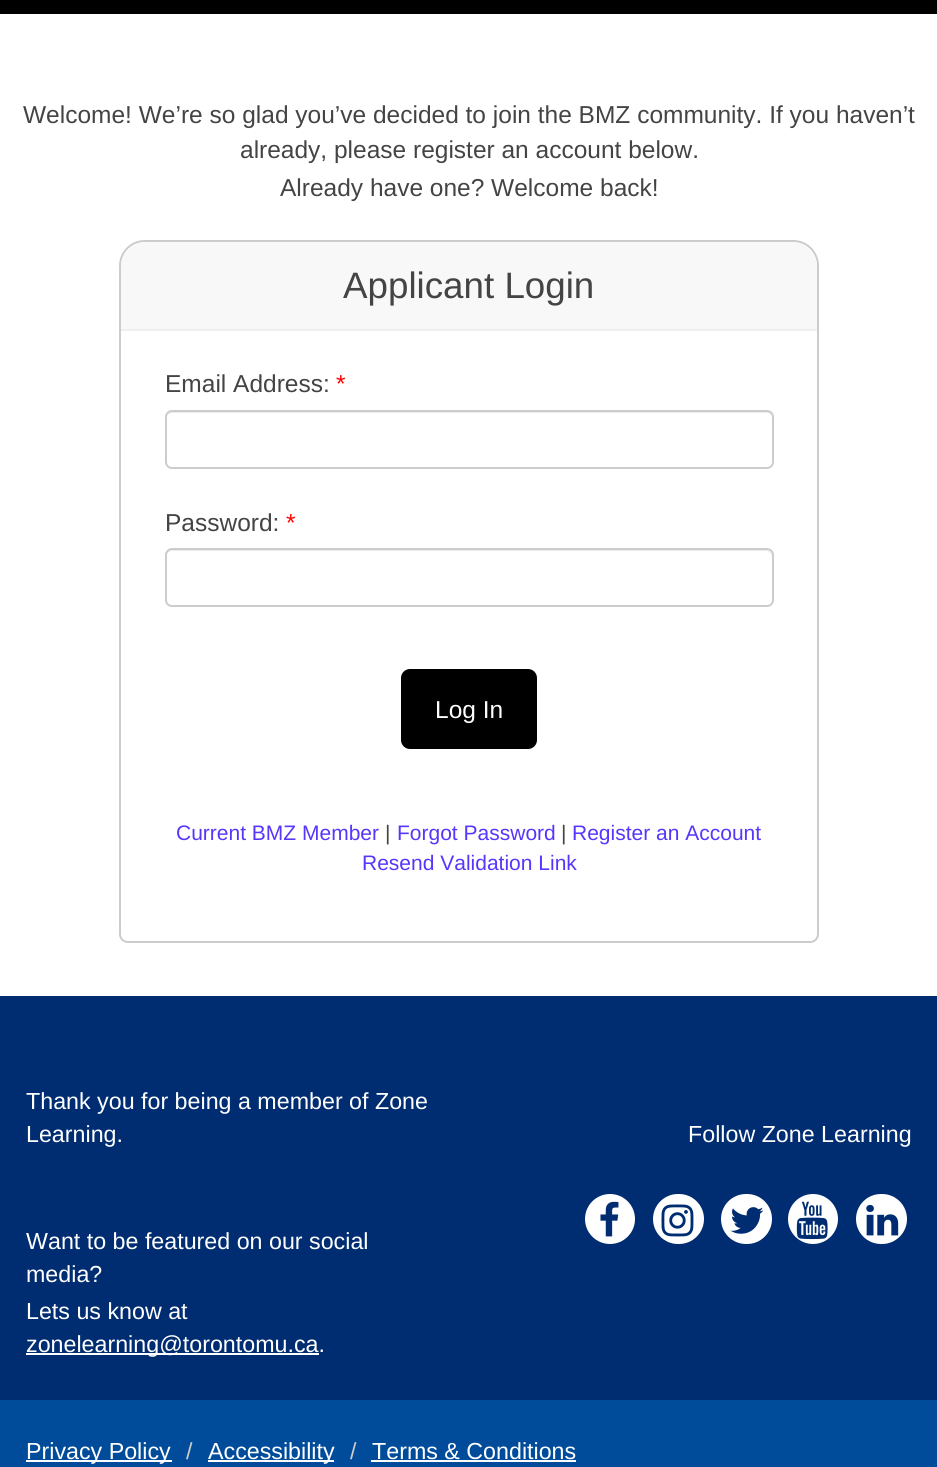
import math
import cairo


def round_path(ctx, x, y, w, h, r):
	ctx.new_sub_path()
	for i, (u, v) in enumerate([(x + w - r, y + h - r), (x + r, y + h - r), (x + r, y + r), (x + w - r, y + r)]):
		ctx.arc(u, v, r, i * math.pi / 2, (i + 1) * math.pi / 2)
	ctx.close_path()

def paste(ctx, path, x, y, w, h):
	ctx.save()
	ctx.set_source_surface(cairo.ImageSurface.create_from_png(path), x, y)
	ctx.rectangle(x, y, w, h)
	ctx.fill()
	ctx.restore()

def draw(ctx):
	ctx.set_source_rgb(1, 1, 1)
	ctx.paint()
	ctx.set_source_rgb(0, 0, 0)
	ctx.rectangle(0, 0, 937, 14)
	ctx.fill()
	ctx.select_font_face('Liberation Sans')
	ctx.set_font_size(24.5)
	ctx.set_source_rgb(0.267, 0.267, 0.267)
	for x, y, s in [
		(23, 123, 'Welcome! We’re so glad you’ve decided to join the BMZ community. If you haven’t'),
		(240, 158, 'already, please register an account below.'),
		(280, 196, 'Already have one? Welcome back!'),
	]:
		ctx.move_to(x, y)
		ctx.show_text(s)
	ctx.new_path()
	ctx.move_to(145, 241)
	ctx.line_to(793, 241)
	ctx.curve_to(807, 241, 818, 252, 818, 266)
	ctx.line_to(818, 934)
	ctx.curve_to(818, 938.5, 814.5, 942, 810, 942)
	ctx.line_to(128, 942)
	ctx.curve_to(123.5, 942, 120, 938.5, 120, 934)
	ctx.line_to(120, 266)
	ctx.curve_to(120, 252, 131, 241, 145, 241)
	ctx.close_path()
	ctx.set_source_rgb(0.8, 0.8, 0.8)
	ctx.stroke()
	ctx.set_source_rgb(0.969, 0.969, 0.969)
	ctx.new_path()
	ctx.move_to(147, 242)
	ctx.line_to(791, 242)
	ctx.curve_to(805.5, 242, 817, 253.5, 817, 268)
	ctx.line_to(817, 331)
	ctx.line_to(121, 331)
	ctx.line_to(121, 268)
	ctx.curve_to(121, 253.5, 132.5, 242, 147, 242)
	ctx.close_path()
	ctx.fill()
	ctx.set_source_rgb(0.933, 0.933, 0.933)
	ctx.rectangle(121, 329, 696, 2)
	ctx.fill()
	ctx.set_font_size(36.75)
	ctx.set_source_rgb(0.267, 0.267, 0.267)
	ctx.move_to(343, 298)
	ctx.show_text('Applicant Login')
	ctx.set_font_size(24.5)
	ctx.move_to(165, 392)
	ctx.show_text('Email Address:')
	ctx.set_source_rgb(1, 0, 0)
	ctx.move_to(336, 392)
	ctx.show_text('*')
	ctx.set_source_rgb(0.925, 0.925, 0.925)
	ctx.new_path()
	ctx.move_to(172, 413)
	ctx.line_to(766, 413)
	ctx.curve_to(769, 413, 772, 415, 772, 418)
	ctx.curve_to(772, 415, 771, 411, 767, 411)
	ctx.line_to(171, 411)
	ctx.curve_to(167, 411, 166, 415, 166, 418)
	ctx.curve_to(166, 415, 169, 413, 172, 413)
	ctx.close_path()
	ctx.fill()
	round_path(ctx, 166, 411, 607, 57, 6)
	ctx.set_source_rgb(0.8, 0.8, 0.8)
	ctx.stroke()
	ctx.set_source_rgb(0.267, 0.267, 0.267)
	ctx.move_to(165, 531)
	ctx.show_text('Password:')
	ctx.set_source_rgb(1, 0, 0)
	ctx.move_to(286, 531)
	ctx.show_text('*')
	ctx.set_source_rgb(0.925, 0.925, 0.925)
	ctx.new_path()
	ctx.move_to(172, 551)
	ctx.line_to(766, 551)
	ctx.curve_to(769, 551, 772, 554, 772, 556)
	ctx.line_to(772, 555)
	ctx.curve_to(772, 552, 770, 550, 767, 550)
	ctx.line_to(171, 550)
	ctx.curve_to(168, 550, 166, 552, 166, 555)
	ctx.line_to(166, 556)
	ctx.curve_to(166, 554, 169, 551, 172, 551)
	ctx.close_path()
	ctx.fill()
	round_path(ctx, 166, 549, 607, 57, 6)
	ctx.set_source_rgb(0.8, 0.8, 0.8)
	ctx.stroke()
	ctx.set_source_rgb(0, 0, 0)
	round_path(ctx, 401, 669, 136, 80, 9)
	ctx.fill()
	ctx.set_source_rgb(1, 1, 1)
	ctx.move_to(435, 718)
	ctx.show_text('Log In')
	ctx.set_font_size(21)
	ctx.set_source_rgb(0.341, 0.212, 0.984)
	ctx.move_to(176, 840)
	ctx.show_text('Current BMZ Member')
	ctx.set_source_rgb(0.267, 0.267, 0.267)
	ctx.move_to(385, 840)
	ctx.show_text('|')
	ctx.set_source_rgb(0.341, 0.212, 0.984)
	ctx.move_to(397, 840)
	ctx.show_text('Forgot Password')
	ctx.set_source_rgb(0.267, 0.267, 0.267)
	ctx.move_to(561, 840)
	ctx.show_text('|')
	ctx.set_source_rgb(0.341, 0.212, 0.984)
	ctx.move_to(572, 840)
	ctx.show_text('Register an Account')
	ctx.move_to(362, 870)
	ctx.show_text('Resend Validation Link')
	ctx.set_source_rgb(0, 0.176, 0.447)
	ctx.rectangle(0, 996, 937, 404)
	ctx.fill()
	ctx.set_font_size(23.25)
	ctx.set_source_rgb(1, 1, 1)
	for x, y, s in [
		(26, 1109, 'Thank you for being a member of Zone'),
		(26, 1142, 'Learning.'),
		(26, 1249, 'Want to be featured on our social'),
		(26, 1282, 'media?'),
		(26, 1319, 'Lets us know at'),
	]:
		ctx.move_to(x, y)
		ctx.show_text(s)
	ctx.rectangle(26, 1353, 293, 2)
	ctx.fill()
	ctx.move_to(26, 1352)
	ctx.show_text('zonelearning@torontomu.ca.')
	ctx.move_to(688, 1142)
	ctx.show_text('Follow Zone Learning')
	ctx.new_path()
	ctx.arc(610, 1219, 25, 0, 2 * math.pi)
	ctx.fill()
	paste(ctx, 'media/1.png', 600, 1201, 19, 36)
	round_path(ctx, 653, 1194, 51, 50, 25)
	ctx.fill()
	paste(ctx, 'media/2.png', 661, 1204, 33, 33)
	round_path(ctx, 721, 1194, 51, 50, 25)
	ctx.fill()
	paste(ctx, 'media/3.png', 730, 1207, 34, 27)
	ctx.arc(813, 1219, 25, 0, 2 * math.pi)
	ctx.fill()
	paste(ctx, 'media/4.png', 796, 1201, 32, 39)
	round_path(ctx, 856, 1194, 51, 50, 25)
	ctx.fill()
	paste(ctx, 'media/5.png', 866, 1204, 33, 32)
	ctx.set_source_rgb(0, 0.298, 0.608)
	ctx.rectangle(0, 1400, 937, 67)
	ctx.fill()
	ctx.set_source_rgb(1, 1, 1)
	ctx.rectangle(26, 1460, 146, 2)
	ctx.fill()
	ctx.move_to(26, 1459)
	ctx.show_text('Privacy Policy')
	ctx.set_source_rgb(0.8, 0.8, 0.8)
	ctx.move_to(186, 1459)
	ctx.show_text('/')
	ctx.set_source_rgb(1, 1, 1)
	ctx.rectangle(208, 1460, 126, 2)
	ctx.fill()
	ctx.move_to(208, 1459)
	ctx.show_text('Accessibility')
	ctx.set_source_rgb(0.8, 0.8, 0.8)
	ctx.move_to(350, 1459)
	ctx.show_text('/')
	ctx.set_source_rgb(1, 1, 1)
	ctx.move_to(372, 1459)
	ctx.show_text('Terms & Conditions')
	ctx.rectangle(371, 1460, 205, 2)
	ctx.fill()


surface = cairo.ImageSurface(cairo.FORMAT_RGB24, 937, 1467)
ctx = cairo.Context(surface)
options = cairo.FontOptions()
options.set_hint_metrics(cairo.HINT_METRICS_OFF)
options.set_hint_style(cairo.HINT_STYLE_NONE)
ctx.set_font_options(options)
ctx.set_miter_limit(4)
draw(ctx)
surface.write_to_png('image.png')
